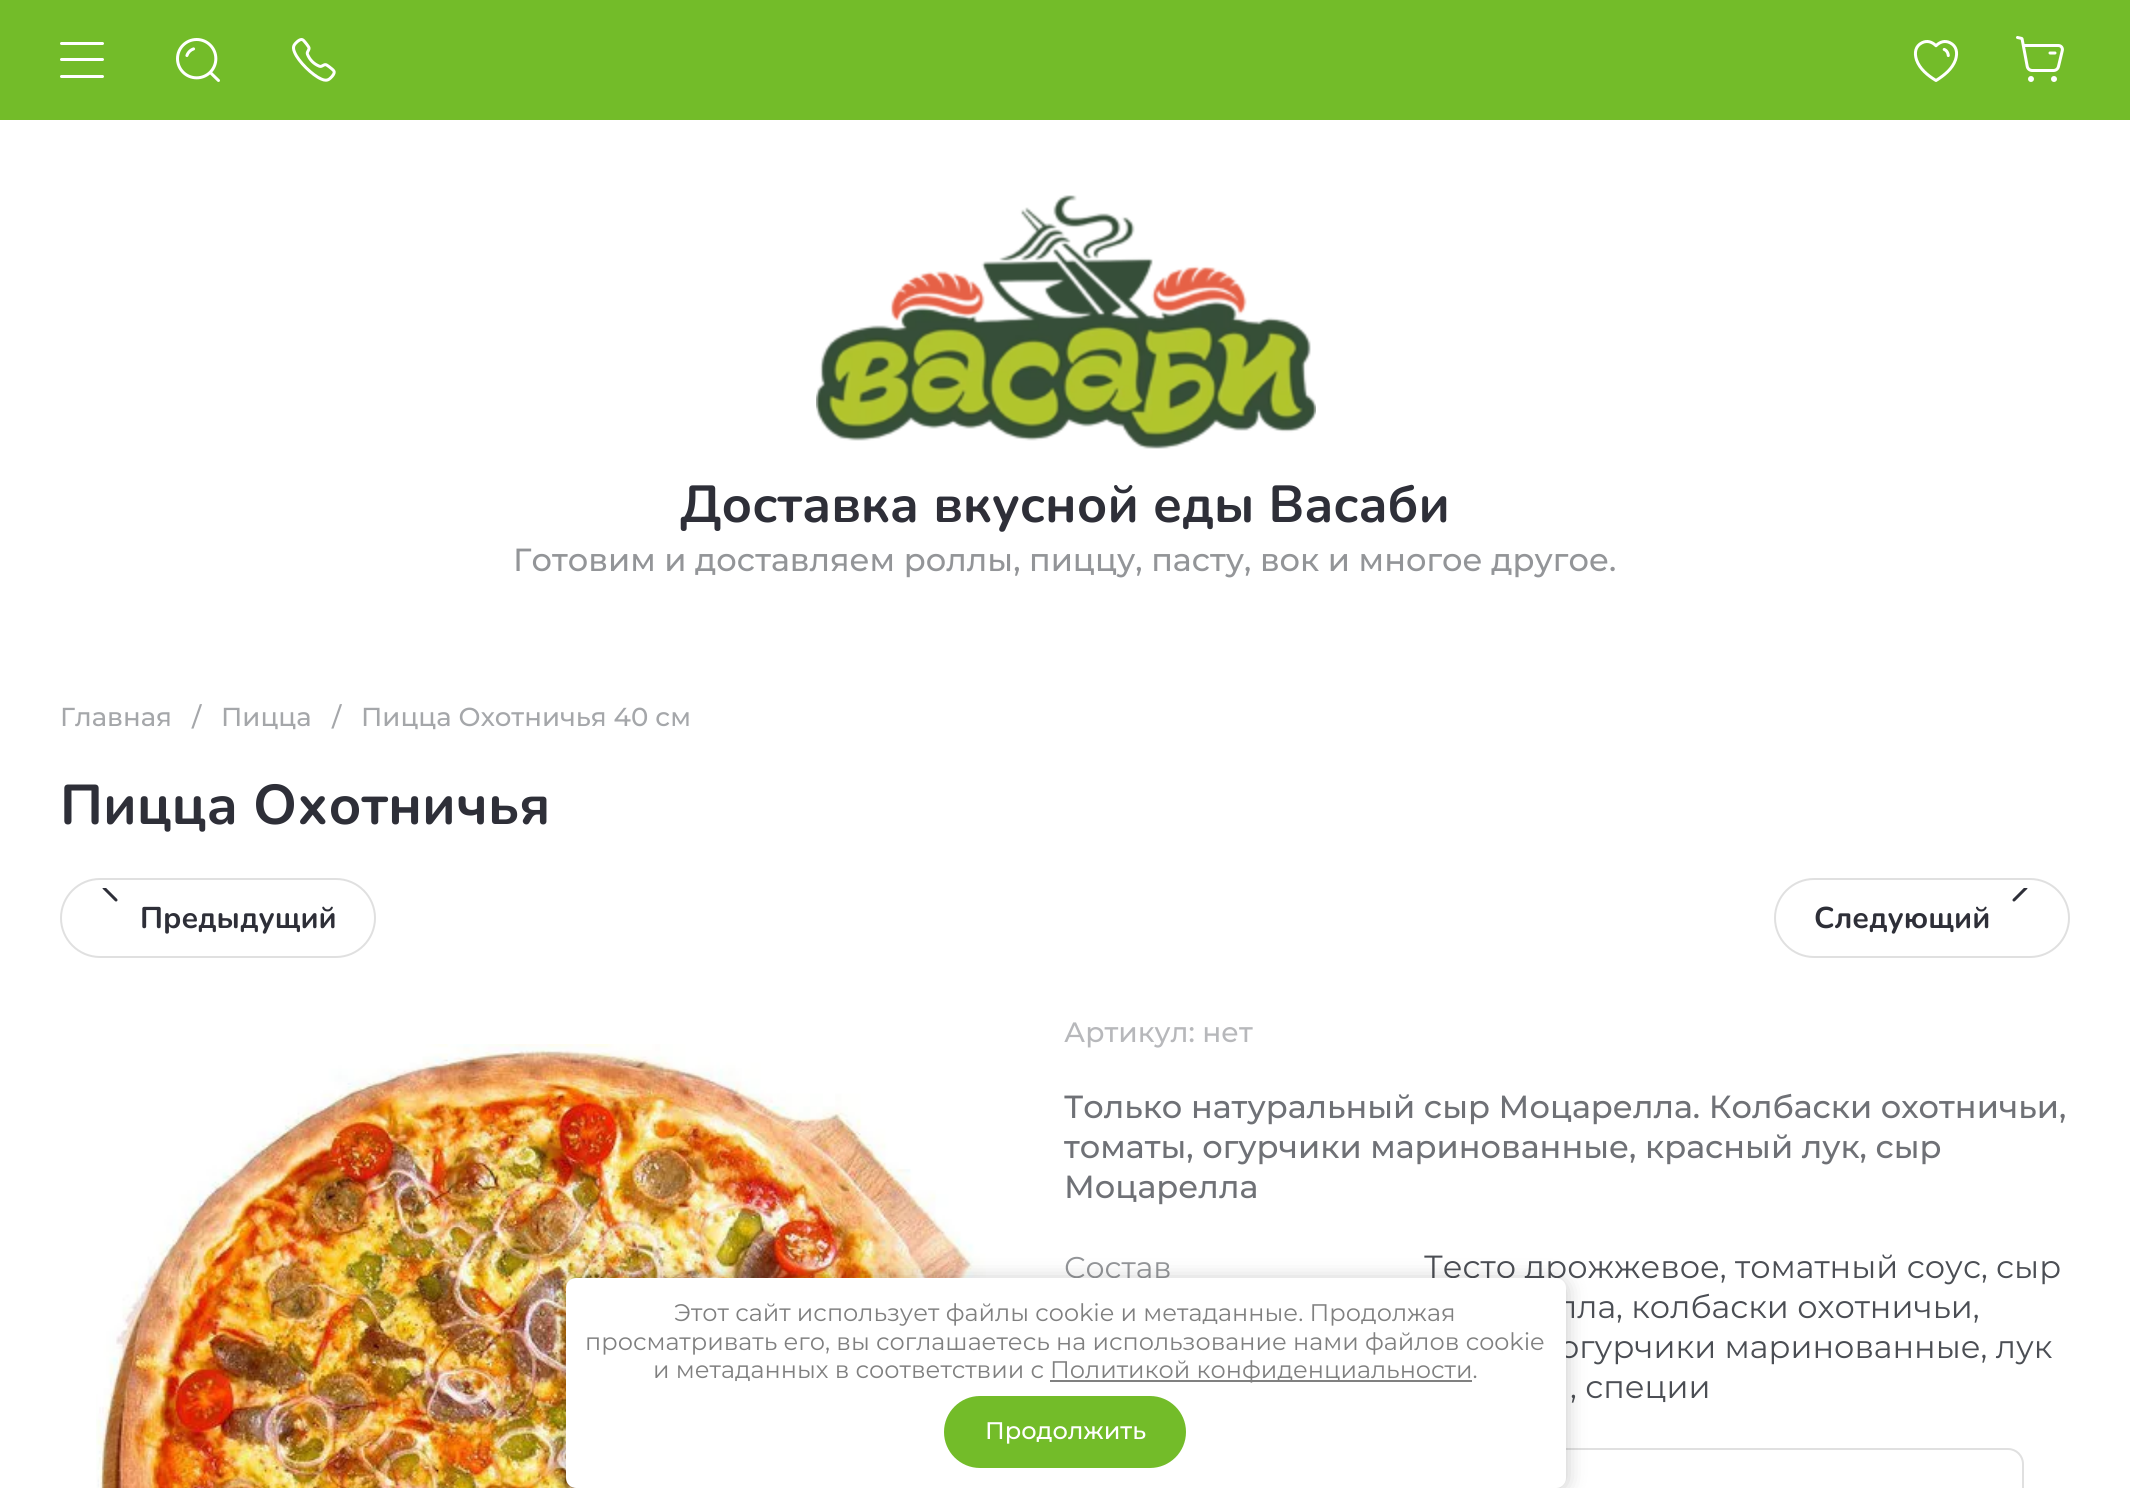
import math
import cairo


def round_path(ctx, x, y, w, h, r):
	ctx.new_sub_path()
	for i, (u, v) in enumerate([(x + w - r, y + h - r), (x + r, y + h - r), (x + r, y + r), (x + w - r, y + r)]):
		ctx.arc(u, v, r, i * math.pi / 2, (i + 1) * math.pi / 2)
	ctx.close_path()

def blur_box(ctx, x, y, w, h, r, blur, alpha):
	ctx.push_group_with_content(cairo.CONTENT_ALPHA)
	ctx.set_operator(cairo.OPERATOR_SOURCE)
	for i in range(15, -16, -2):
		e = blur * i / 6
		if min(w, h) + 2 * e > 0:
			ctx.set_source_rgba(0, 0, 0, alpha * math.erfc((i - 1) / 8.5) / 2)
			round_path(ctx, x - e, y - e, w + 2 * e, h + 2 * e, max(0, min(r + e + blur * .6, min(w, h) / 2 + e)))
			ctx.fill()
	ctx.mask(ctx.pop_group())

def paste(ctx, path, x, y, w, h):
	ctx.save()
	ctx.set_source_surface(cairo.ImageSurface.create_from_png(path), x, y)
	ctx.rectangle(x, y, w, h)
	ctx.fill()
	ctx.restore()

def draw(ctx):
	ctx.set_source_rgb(1, 1, 1)
	ctx.paint()
	ctx.set_source_rgb(0.451, 0.737, 0.161)
	ctx.rectangle(0, 0, 2130, 120)
	ctx.fill()
	paste(ctx, 'media/1.png', 60, 42, 44, 36)
	paste(ctx, 'media/2.png', 176, 38, 44, 44)
	paste(ctx, 'media/3.png', 292, 38, 44, 44)
	paste(ctx, 'media/4.png', 1913, 40, 46, 42)
	paste(ctx, 'media/5.png', 2016, 36, 48, 46)
	paste(ctx, 'media/6.png', 816, 195, 500, 254)
	ctx.select_font_face('Nunito', cairo.FONT_SLANT_NORMAL, cairo.FONT_WEIGHT_BOLD)
	ctx.set_font_size(52)
	ctx.set_source_rgb(0.18, 0.184, 0.22)
	ctx.move_to(680, 522)
	ctx.show_text('Доставка вкусной еды Васаби')
	ctx.select_font_face('Montserrat Medium')
	ctx.set_font_size(32)
	ctx.set_source_rgb(0.576, 0.584, 0.596)
	ctx.move_to(513, 571)
	ctx.show_text('Готовим и доставляем роллы, пиццу, пасту, вок и многое другое.')
	ctx.set_font_size(26)
	ctx.set_source_rgb(0.647, 0.655, 0.667)
	for x, y, s in [
		(60, 726, 'Главная'),
		(192, 726, '/'),
		(221, 726, 'Пицца'),
		(332, 726, '/'),
		(361, 726, 'Пицца Охотничья 40 см'),
	]:
		ctx.move_to(x, y)
		ctx.show_text(s)
	ctx.select_font_face('Nunito', cairo.FONT_SLANT_NORMAL, cairo.FONT_WEIGHT_BOLD)
	ctx.set_font_size(56)
	ctx.set_source_rgb(0.18, 0.184, 0.22)
	ctx.move_to(60, 824)
	ctx.show_text('Пицца Охотничья')
	round_path(ctx, 61, 879, 314, 78, 39)
	ctx.set_source_rgb(0.878, 0.878, 0.878)
	ctx.stroke()
	paste(ctx, 'media/7.png', 102, 888, 16, 14)
	ctx.set_font_size(30)
	ctx.set_source_rgb(0.18, 0.184, 0.22)
	ctx.move_to(140, 928)
	ctx.show_text('Предыдущий')
	round_path(ctx, 1775, 879, 294, 78, 39)
	ctx.set_source_rgb(0.878, 0.878, 0.878)
	ctx.stroke()
	paste(ctx, 'media/8.png', 2012, 888, 16, 14)
	ctx.set_source_rgb(0.18, 0.184, 0.22)
	ctx.move_to(1814, 928)
	ctx.show_text('Следующий')
	paste(ctx, 'media/9.png', 96, 1044, 891, 444)
	ctx.select_font_face('Montserrat Medium')
	ctx.set_font_size(28)
	ctx.set_source_rgb(0.718, 0.722, 0.733)
	ctx.move_to(1064, 1042)
	ctx.show_text('Артикул: нет')
	ctx.set_font_size(32)
	ctx.set_source_rgb(0.435, 0.443, 0.463)
	for x, y, s in [
		(1064, 1118, 'Только натуральный сыр Моцарелла. Колбаски охотничьи,'),
		(1064, 1158, 'томаты, огурчики маринованные, красный лук, сыр'),
		(1064, 1198, 'Моцарелла'),
	]:
		ctx.move_to(x, y)
		ctx.show_text(s)
	ctx.select_font_face('Montserrat')
	ctx.set_font_size(30)
	ctx.set_source_rgb(0.576, 0.584, 0.596)
	ctx.move_to(1064, 1278)
	ctx.show_text('Состав')
	ctx.set_font_size(32)
	ctx.set_source_rgb(0.294, 0.306, 0.329)
	for x, y, s in [
		(1424, 1278, 'Тесто дрожжевое, томатный соус, сыр'),
		(1557, 1318, 'лла, колбаски охотничьи,'),
		(1559, 1358, 'огурчики маринованные, лук'),
		(1570, 1398, ', специи'),
	]:
		ctx.move_to(x, y)
		ctx.show_text(s)
	round_path(ctx, 1425, 1449, 598, 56, 15)
	ctx.set_source_rgb(0.878, 0.878, 0.878)
	ctx.stroke()
	ctx.set_source_rgb(0, 0, 0)
	blur_box(ctx, 566, 1280, 1000, 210, 10, 10, 0.23)
	ctx.set_source_rgb(1, 1, 1)
	round_path(ctx, 566, 1278, 1000, 210, 10)
	ctx.fill()
	ctx.set_font_size(24)
	ctx.set_source_rgb(0.502, 0.502, 0.502)
	for x, y, s in [
		(674, 1321, 'Этот сайт использует файлы cookie и метаданные. Продолжая'),
		(585, 1350, 'просматривать его, вы соглашаетесь на использование нами файлов cookie'),
		(653, 1378, 'и метаданных в соответствии с'),
	]:
		ctx.move_to(x, y)
		ctx.show_text(s)
	ctx.rectangle(1050, 1380, 422, 2)
	ctx.fill()
	ctx.move_to(1050, 1378)
	ctx.show_text('Политикой конфиденциальности.')
	ctx.set_source_rgb(0.451, 0.737, 0.161)
	round_path(ctx, 944, 1396, 242, 72, 36)
	ctx.fill()
	ctx.select_font_face('Montserrat Medium')
	ctx.set_source_rgb(1, 1, 1)
	ctx.move_to(985, 1439)
	ctx.show_text('Продолжить')


surface = cairo.ImageSurface(cairo.FORMAT_RGB24, 2130, 1488)
ctx = cairo.Context(surface)
options = cairo.FontOptions()
options.set_hint_metrics(cairo.HINT_METRICS_OFF)
options.set_hint_style(cairo.HINT_STYLE_NONE)
ctx.set_font_options(options)
ctx.set_miter_limit(4)
draw(ctx)
surface.write_to_png('image.png')
